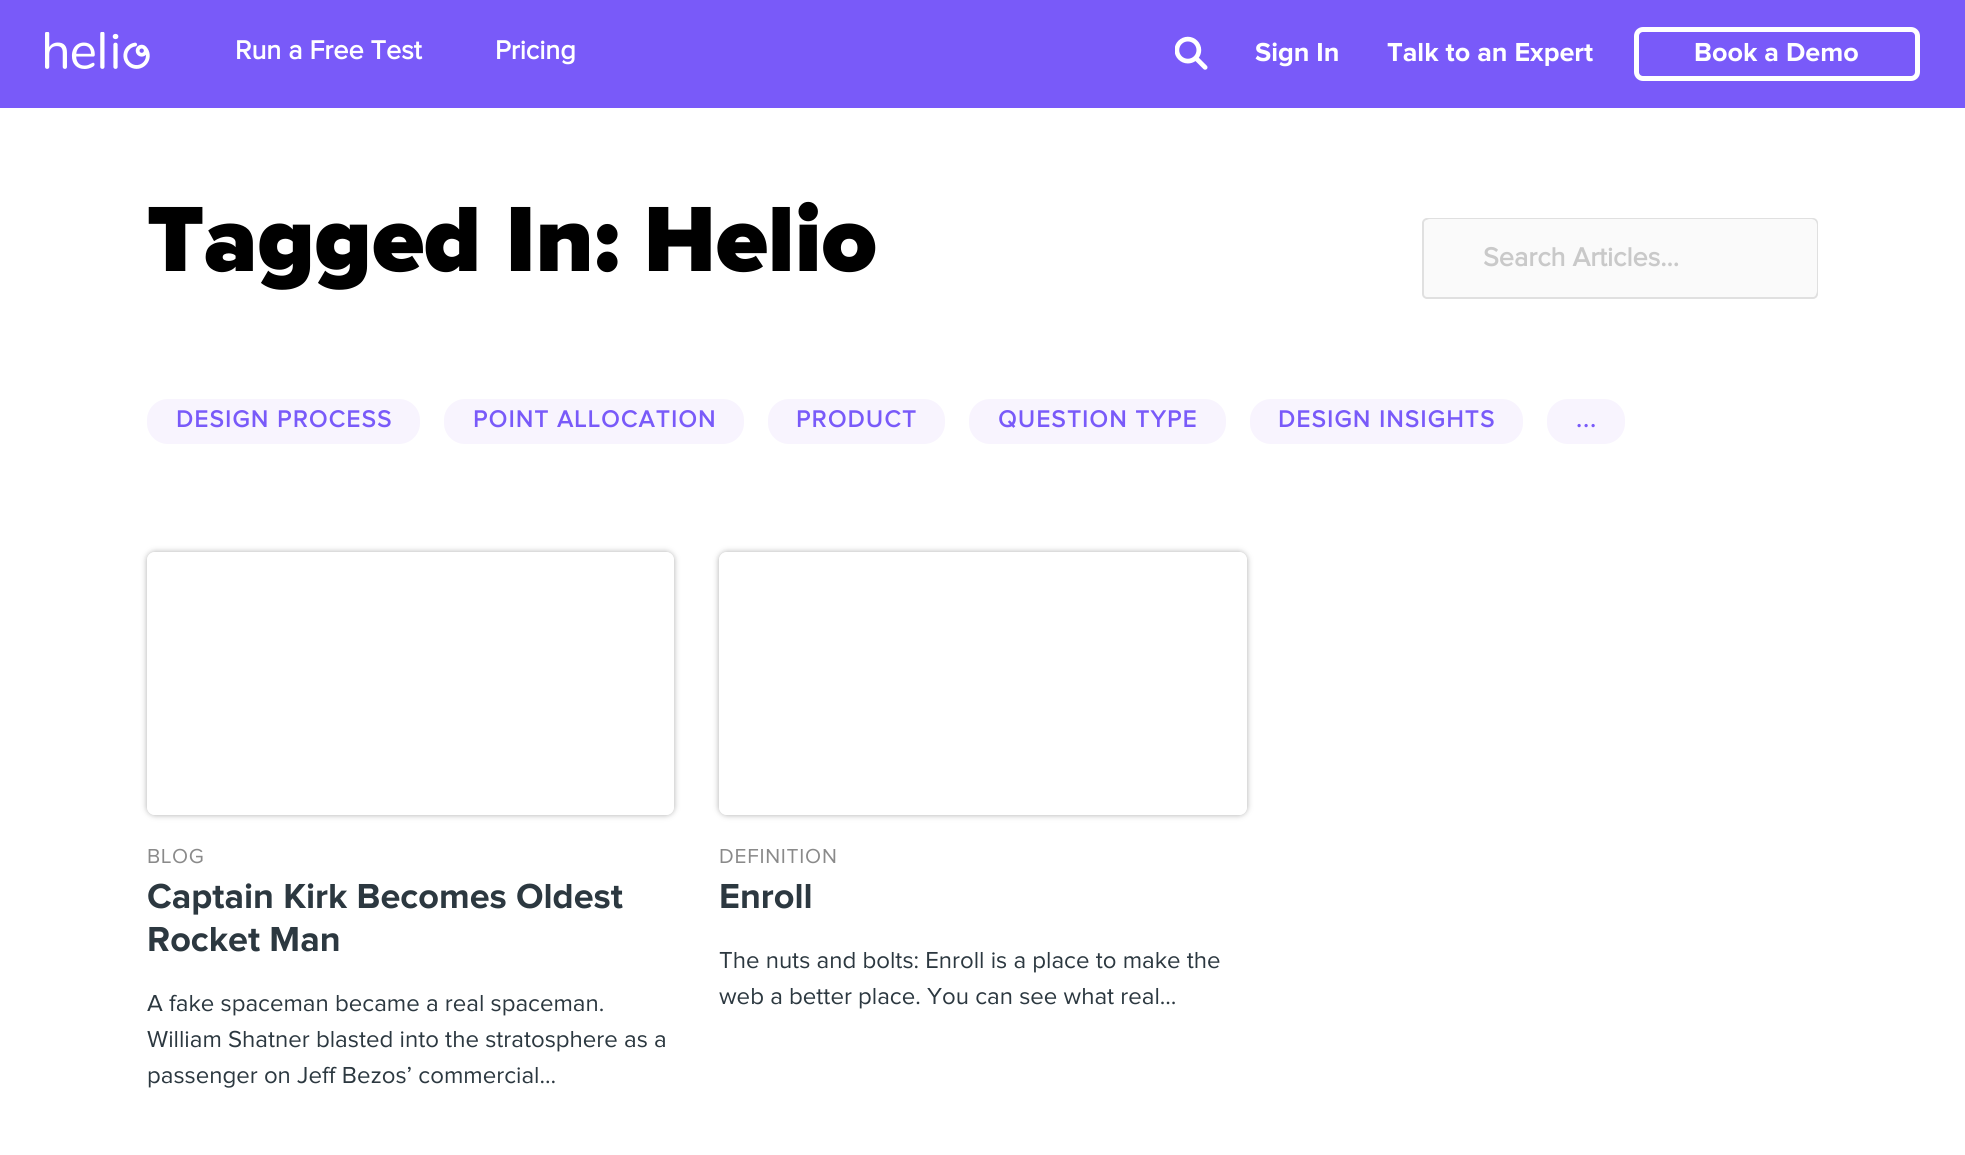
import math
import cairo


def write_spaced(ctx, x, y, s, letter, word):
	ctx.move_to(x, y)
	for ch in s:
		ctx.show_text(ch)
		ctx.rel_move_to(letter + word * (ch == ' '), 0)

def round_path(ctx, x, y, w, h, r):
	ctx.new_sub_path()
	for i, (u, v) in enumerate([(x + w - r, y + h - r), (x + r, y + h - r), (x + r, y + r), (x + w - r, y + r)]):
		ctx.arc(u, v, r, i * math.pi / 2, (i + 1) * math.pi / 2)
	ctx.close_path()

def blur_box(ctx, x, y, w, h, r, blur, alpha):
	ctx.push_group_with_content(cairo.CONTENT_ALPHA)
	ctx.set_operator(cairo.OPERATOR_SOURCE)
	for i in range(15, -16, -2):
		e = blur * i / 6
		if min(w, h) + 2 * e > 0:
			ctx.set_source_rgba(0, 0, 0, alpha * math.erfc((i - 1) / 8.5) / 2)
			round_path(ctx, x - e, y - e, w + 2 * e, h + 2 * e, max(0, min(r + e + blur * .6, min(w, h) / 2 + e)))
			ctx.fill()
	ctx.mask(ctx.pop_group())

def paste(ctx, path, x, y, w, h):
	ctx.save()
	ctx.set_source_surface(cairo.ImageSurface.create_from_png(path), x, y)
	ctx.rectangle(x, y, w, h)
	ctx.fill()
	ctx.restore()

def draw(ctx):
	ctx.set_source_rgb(1, 1, 1)
	ctx.paint()
	ctx.set_source_rgb(0.475, 0.353, 0.973)
	ctx.rectangle(0, 0, 1965, 108)
	ctx.fill()
	paste(ctx, 'media/1.png', 45, 32, 105, 37)
	ctx.select_font_face('Proxima Nova', cairo.FONT_SLANT_NORMAL, cairo.FONT_WEIGHT_BOLD)
	ctx.set_font_size(27)
	ctx.set_source_rgb(1, 1, 1)
	ctx.move_to(235, 59)
	ctx.show_text('Run a Free Test')
	ctx.move_to(495, 59)
	ctx.show_text('Pricing')
	paste(ctx, 'media/2.png', 1175, 36, 33, 34)
	ctx.select_font_face('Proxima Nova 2', cairo.FONT_SLANT_NORMAL, cairo.FONT_WEIGHT_BOLD)
	ctx.move_to(1255, 61)
	ctx.show_text('Sign In')
	ctx.move_to(1387, 61)
	ctx.show_text('Talk to an Expert')
	round_path(ctx, 1636.5, 29.5, 281, 49, 6.5)
	ctx.set_line_width(5)
	ctx.stroke()
	ctx.move_to(1694, 61)
	ctx.show_text('Book a Demo')
	ctx.select_font_face('Proxima Nova Black')
	ctx.set_font_size(96)
	ctx.set_source_rgb(0, 0, 0)
	ctx.move_to(147, 271)
	ctx.show_text('Tagged In: Helio')
	ctx.set_source_rgb(0.98, 0.98, 0.98)
	round_path(ctx, 1423, 219, 394, 79, 4)
	ctx.fill_preserve()
	ctx.set_source_rgb(0.878, 0.878, 0.878)
	ctx.set_line_width(2)
	ctx.stroke()
	ctx.set_source_rgb(0.98, 0.98, 0.98)
	round_path(ctx, 1424, 219, 393, 78, 6)
	ctx.fill()
	ctx.select_font_face('Proxima Nova', cairo.FONT_SLANT_NORMAL, cairo.FONT_WEIGHT_BOLD)
	ctx.set_font_size(27)
	ctx.set_source_rgb(0.788, 0.788, 0.788)
	ctx.move_to(1483, 266)
	ctx.show_text('Search Articles...')
	ctx.set_source_rgb(0.969, 0.957, 0.996)
	round_path(ctx, 148, 400, 271, 43, 20)
	ctx.fill_preserve()
	ctx.stroke()
	ctx.set_font_size(24)
	ctx.set_source_rgb(0.475, 0.353, 0.973)
	write_spaced(ctx, 176, 427, 'DESIGN PROCESS', 1.5, 0)
	ctx.set_source_rgb(0.969, 0.957, 0.996)
	round_path(ctx, 445, 400, 298, 43, 20)
	ctx.fill_preserve()
	ctx.stroke()
	ctx.set_source_rgb(0.475, 0.353, 0.973)
	write_spaced(ctx, 473, 427, 'POINT ALLOCATION', 1.5, 0)
	ctx.set_source_rgb(0.969, 0.957, 0.996)
	round_path(ctx, 769, 400, 175, 43, 20)
	ctx.fill_preserve()
	ctx.stroke()
	ctx.set_source_rgb(0.475, 0.353, 0.973)
	write_spaced(ctx, 796, 427, 'PRODUCT', 1.5, 0)
	ctx.set_source_rgb(0.969, 0.957, 0.996)
	round_path(ctx, 970, 400, 255, 43, 20)
	ctx.fill_preserve()
	ctx.stroke()
	ctx.set_source_rgb(0.475, 0.353, 0.973)
	write_spaced(ctx, 998, 427, 'QUESTION TYPE', 1.5, 0)
	ctx.set_source_rgb(0.969, 0.957, 0.996)
	round_path(ctx, 1251, 400, 271, 43, 20)
	ctx.fill_preserve()
	ctx.stroke()
	ctx.set_source_rgb(0.475, 0.353, 0.973)
	write_spaced(ctx, 1278, 427, 'DESIGN INSIGHTS', 1.5, 0)
	ctx.set_source_rgb(0.969, 0.957, 0.996)
	round_path(ctx, 1548, 400, 76, 43, 20)
	ctx.fill_preserve()
	ctx.stroke()
	ctx.set_source_rgb(0.475, 0.353, 0.973)
	write_spaced(ctx, 1576, 427, '...', 1.5, 0)
	ctx.save()
	ctx.set_fill_rule(cairo.FILL_RULE_EVEN_ODD)
	ctx.new_path()
	ctx.move_to(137, 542)
	ctx.line_to(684, 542)
	ctx.line_to(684, 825)
	ctx.line_to(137, 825)
	ctx.close_path()
	ctx.move_to(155, 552)
	ctx.line_to(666, 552)
	ctx.curve_to(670.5, 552, 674, 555.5, 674, 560)
	ctx.line_to(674, 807)
	ctx.curve_to(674, 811.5, 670.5, 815, 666, 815)
	ctx.line_to(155, 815)
	ctx.curve_to(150.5, 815, 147, 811.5, 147, 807)
	ctx.line_to(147, 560)
	ctx.curve_to(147, 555.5, 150.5, 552, 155, 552)
	ctx.close_path()
	ctx.clip()
	ctx.set_source_rgb(0.361, 0.361, 0.361)
	blur_box(ctx, 147, 552, 527, 263, 8, 3, 0.5)
	ctx.restore()
	ctx.select_font_face('Proxima Nova')
	ctx.set_font_size(21)
	ctx.set_source_rgb(0.541, 0.541, 0.541)
	write_spaced(ctx, 147, 863, 'BLOG', 0.75, 0)
	ctx.select_font_face('Proxima Nova 2', cairo.FONT_SLANT_NORMAL, cairo.FONT_WEIGHT_BOLD)
	ctx.set_font_size(36)
	ctx.set_source_rgb(0.173, 0.22, 0.251)
	ctx.move_to(147, 908)
	ctx.show_text('Captain Kirk Becomes Oldest')
	ctx.move_to(147, 951)
	ctx.show_text('Rocket Man')
	ctx.select_font_face('Proxima Nova')
	ctx.set_font_size(24)
	for x, y, s in [
		(147, 1011, 'A fake spaceman became a real spaceman.'),
		(147, 1047, 'William Shatner blasted into the stratosphere as a'),
		(147, 1083, 'passenger on Jeff Bezos’ commercial…'),
	]:
		ctx.move_to(x, y)
		ctx.show_text(s)
	ctx.save()
	ctx.set_fill_rule(cairo.FILL_RULE_EVEN_ODD)
	ctx.new_path()
	ctx.move_to(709, 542)
	ctx.line_to(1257, 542)
	ctx.line_to(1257, 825)
	ctx.line_to(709, 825)
	ctx.close_path()
	ctx.move_to(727, 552)
	ctx.line_to(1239, 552)
	ctx.curve_to(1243.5, 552, 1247, 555.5, 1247, 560)
	ctx.line_to(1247, 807)
	ctx.curve_to(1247, 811.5, 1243.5, 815, 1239, 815)
	ctx.line_to(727, 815)
	ctx.curve_to(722.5, 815, 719, 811.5, 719, 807)
	ctx.line_to(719, 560)
	ctx.curve_to(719, 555.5, 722.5, 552, 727, 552)
	ctx.close_path()
	ctx.clip()
	ctx.set_source_rgb(0.361, 0.361, 0.361)
	blur_box(ctx, 719, 552, 528, 263, 8, 3, 0.5)
	ctx.restore()
	ctx.set_font_size(21)
	ctx.set_source_rgb(0.541, 0.541, 0.541)
	write_spaced(ctx, 719, 863, 'DEFINITION', 0.75, 0)
	ctx.select_font_face('Proxima Nova 2', cairo.FONT_SLANT_NORMAL, cairo.FONT_WEIGHT_BOLD)
	ctx.set_font_size(36)
	ctx.set_source_rgb(0.173, 0.22, 0.251)
	ctx.move_to(719, 908)
	ctx.show_text('Enroll')
	ctx.select_font_face('Proxima Nova')
	ctx.set_font_size(24)
	ctx.move_to(719, 968)
	ctx.show_text('The nuts and bolts: Enroll is a place to make the')
	ctx.move_to(719, 1004)
	ctx.show_text('web a better place. You can see what real…')


surface = cairo.ImageSurface(cairo.FORMAT_RGB24, 1965, 1155)
ctx = cairo.Context(surface)
options = cairo.FontOptions()
options.set_hint_metrics(cairo.HINT_METRICS_OFF)
options.set_hint_style(cairo.HINT_STYLE_NONE)
ctx.set_font_options(options)
ctx.set_miter_limit(4)
draw(ctx)
surface.write_to_png('image.png')
